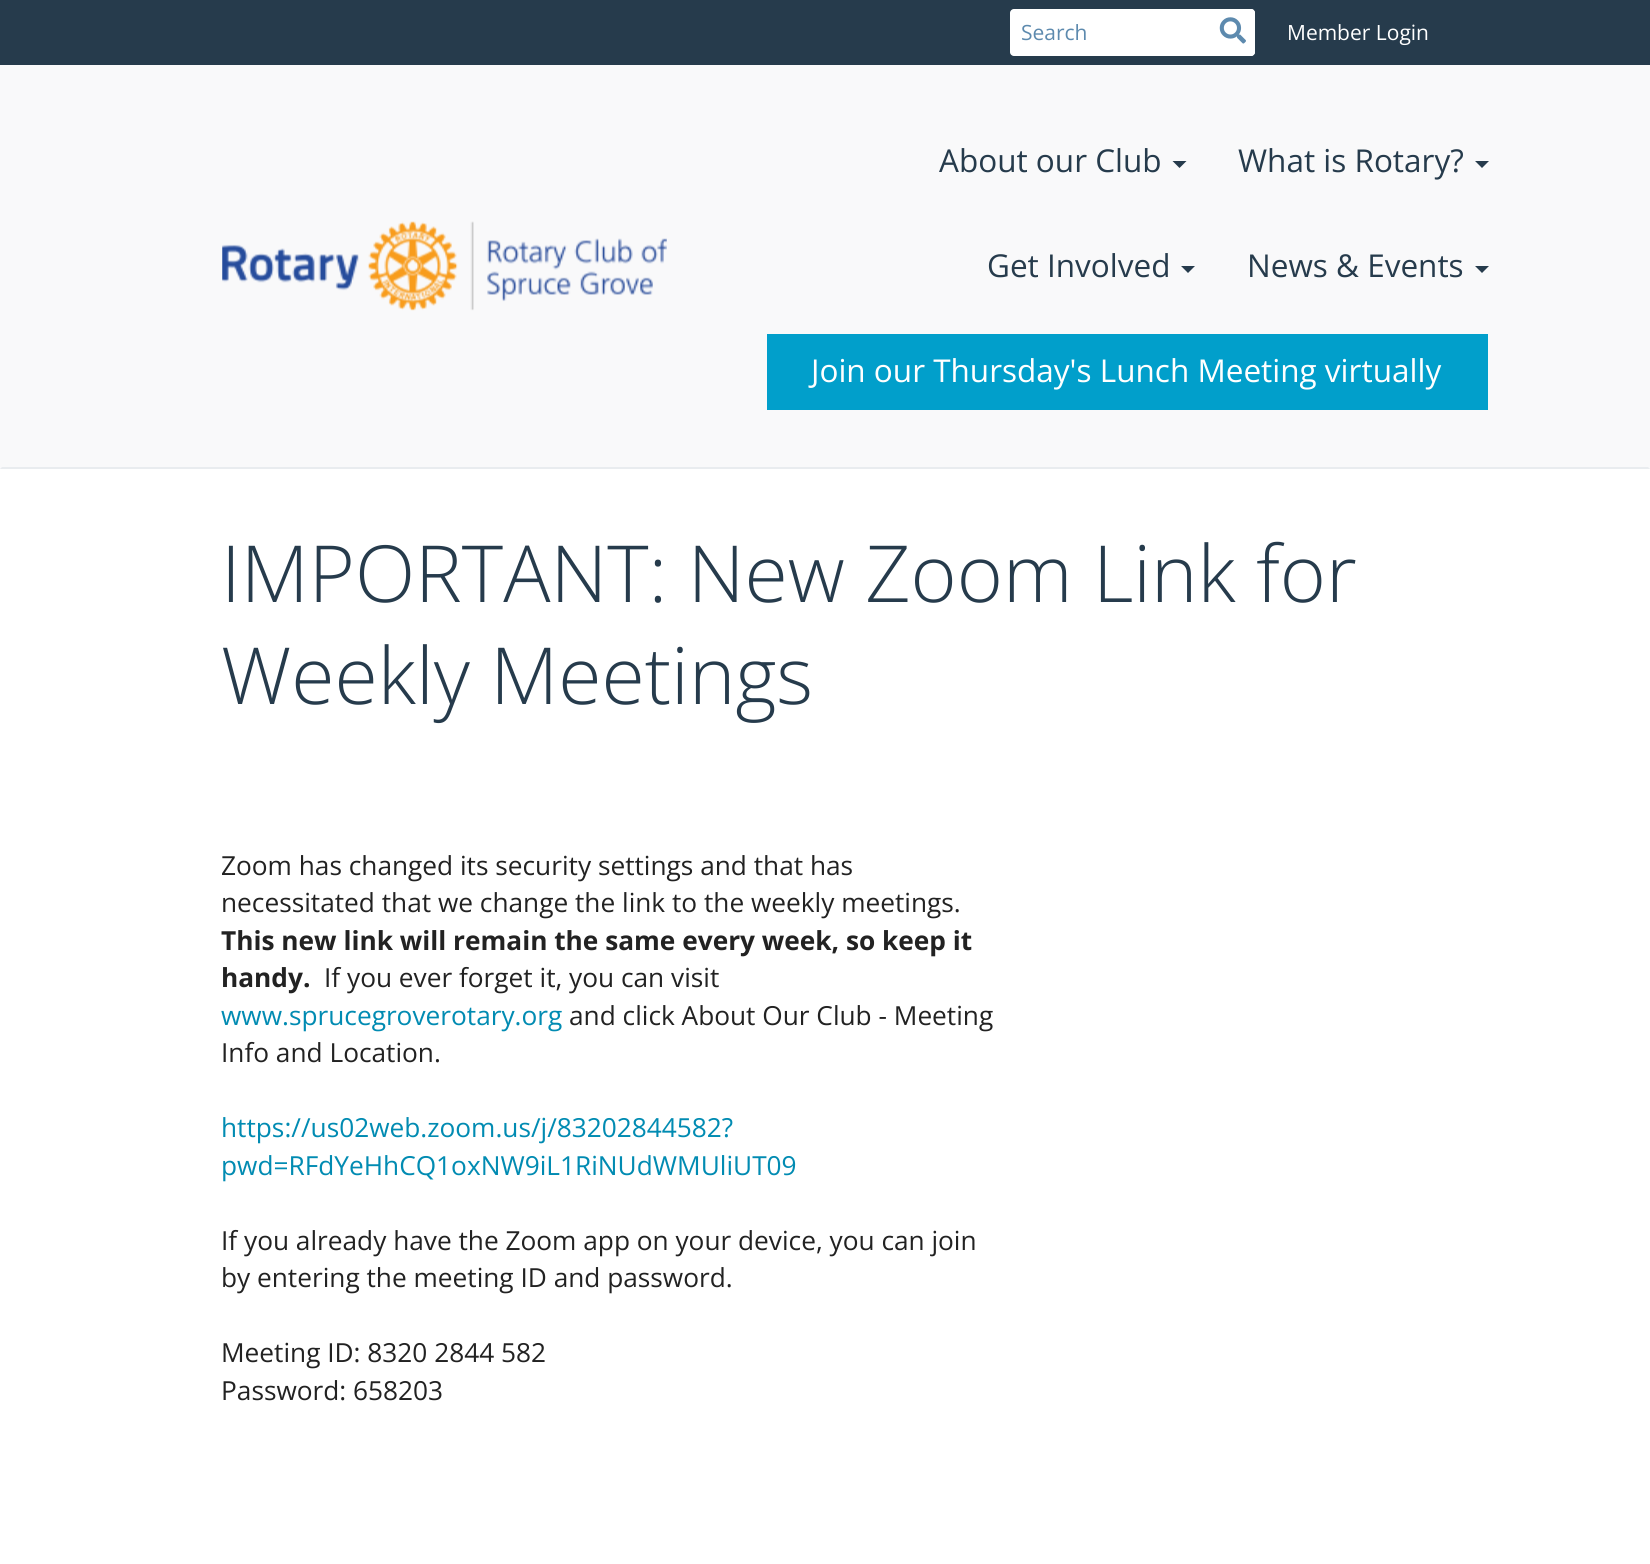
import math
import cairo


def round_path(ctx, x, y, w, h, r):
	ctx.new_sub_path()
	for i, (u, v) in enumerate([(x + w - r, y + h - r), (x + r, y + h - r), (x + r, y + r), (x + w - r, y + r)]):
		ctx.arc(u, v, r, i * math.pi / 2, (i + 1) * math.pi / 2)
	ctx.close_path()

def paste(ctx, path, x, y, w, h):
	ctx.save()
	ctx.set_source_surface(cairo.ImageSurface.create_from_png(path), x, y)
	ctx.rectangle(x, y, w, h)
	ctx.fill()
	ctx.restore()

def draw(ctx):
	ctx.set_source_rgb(1, 1, 1)
	ctx.paint()
	ctx.set_source_rgb(0.149, 0.231, 0.298)
	ctx.rectangle(0, 0, 1650, 65)
	ctx.fill()
	ctx.set_source_rgb(1, 1, 1)
	round_path(ctx, 1010, 9, 245, 47, 4)
	ctx.fill()
	ctx.select_font_face('Open Sans')
	ctx.set_font_size(21)
	ctx.set_source_rgb(0.365, 0.541, 0.682)
	ctx.move_to(1021, 40)
	ctx.show_text('Search')
	ctx.set_source_rgb(1, 1, 1)
	round_path(ctx, 1211, 9, 44, 47, 4)
	ctx.fill()
	paste(ctx, 'media/1.png', 1219, 17, 27, 27)
	ctx.move_to(1287, 40)
	ctx.show_text('Member Login')
	ctx.set_source_rgb(0.973, 0.976, 0.98)
	ctx.rectangle(0, 65, 1650, 404)
	ctx.fill()
	ctx.set_source_rgb(0.914, 0.925, 0.937)
	ctx.new_path()
	ctx.move_to(1650, 469)
	ctx.line_to(0, 469)
	ctx.line_to(2, 467)
	ctx.line_to(1648, 467)
	ctx.close_path()
	ctx.fill()
	paste(ctx, 'media/2.png', 222, 221, 445, 90)
	ctx.set_font_size(31.5)
	ctx.set_source_rgb(0.149, 0.231, 0.298)
	ctx.move_to(939, 172)
	ctx.show_text('About our Club')
	ctx.new_path()
	ctx.move_to(1172.5, 161)
	ctx.line_to(1186.5, 161)
	ctx.line_to(1179.5, 168)
	ctx.close_path()
	ctx.fill()
	ctx.move_to(1238, 172)
	ctx.show_text('What is Rotary?')
	ctx.new_path()
	ctx.move_to(1475, 161)
	ctx.line_to(1489, 161)
	ctx.line_to(1482, 168)
	ctx.close_path()
	ctx.fill()
	ctx.move_to(987, 277)
	ctx.show_text('Get Involved')
	ctx.new_path()
	ctx.move_to(1181, 266)
	ctx.line_to(1195, 266)
	ctx.line_to(1188, 273)
	ctx.close_path()
	ctx.fill()
	ctx.move_to(1247, 277)
	ctx.show_text('News & Events')
	ctx.new_path()
	ctx.move_to(1475, 266)
	ctx.line_to(1489, 266)
	ctx.line_to(1482, 273)
	ctx.close_path()
	ctx.fill()
	ctx.set_source_rgb(0.004, 0.624, 0.796)
	ctx.rectangle(767, 334, 721, 76)
	ctx.fill()
	ctx.set_source_rgb(1, 1, 1)
	ctx.move_to(811, 382)
	ctx.show_text('Join our Thursday\'s Lunch Meeting virtually')
	ctx.select_font_face('Open Sans Light')
	ctx.set_font_size(78.75)
	ctx.set_source_rgb(0.149, 0.231, 0.298)
	ctx.move_to(221, 602)
	ctx.show_text('IMPORTANT: New Zoom Link for')
	ctx.move_to(221, 704)
	ctx.show_text('Weekly Meetings')
	ctx.select_font_face('Open Sans')
	ctx.set_font_size(26.25)
	ctx.set_source_rgb(0.133, 0.133, 0.133)
	ctx.move_to(221, 875)
	ctx.show_text('Zoom has changed its security settings and that has')
	ctx.move_to(221, 912)
	ctx.show_text('necessitated that we change the link to the weekly meetings.')
	ctx.select_font_face('Open Sans', cairo.FONT_SLANT_NORMAL, cairo.FONT_WEIGHT_BOLD)
	ctx.move_to(221, 950)
	ctx.show_text('This new link will remain the same every week, so keep it')
	ctx.move_to(221, 987)
	ctx.show_text('handy.')
	ctx.select_font_face('Open Sans')
	ctx.move_to(324, 987)
	ctx.show_text('If you ever forget it, you can visit')
	ctx.set_source_rgb(0.004, 0.545, 0.698)
	ctx.move_to(221, 1025)
	ctx.show_text('www.sprucegroverotary.org')
	ctx.set_source_rgb(0.133, 0.133, 0.133)
	ctx.move_to(569, 1025)
	ctx.show_text('and click About Our Club - Meeting')
	ctx.move_to(221, 1062)
	ctx.show_text('Info and Location.')
	ctx.set_source_rgb(0.004, 0.545, 0.698)
	ctx.move_to(221, 1137)
	ctx.show_text('https://us02web.zoom.us/j/83202844582?')
	ctx.move_to(221, 1175)
	ctx.show_text('pwd=RFdYeHhCQ1oxNW9iL1RiNUdWMUliUT09')
	ctx.set_source_rgb(0.133, 0.133, 0.133)
	for x, y, s in [
		(221, 1250, 'If you already have the Zoom app on your device, you can join'),
		(221, 1287, 'by entering the meeting ID and password.'),
		(221, 1362, 'Meeting ID: 8320 2844 582'),
		(221, 1400, 'Password: 658203'),
	]:
		ctx.move_to(x, y)
		ctx.show_text(s)


surface = cairo.ImageSurface(cairo.FORMAT_RGB24, 1650, 1564)
ctx = cairo.Context(surface)
options = cairo.FontOptions()
options.set_hint_metrics(cairo.HINT_METRICS_OFF)
options.set_hint_style(cairo.HINT_STYLE_NONE)
ctx.set_font_options(options)
ctx.set_miter_limit(4)
draw(ctx)
surface.write_to_png('image.png')
